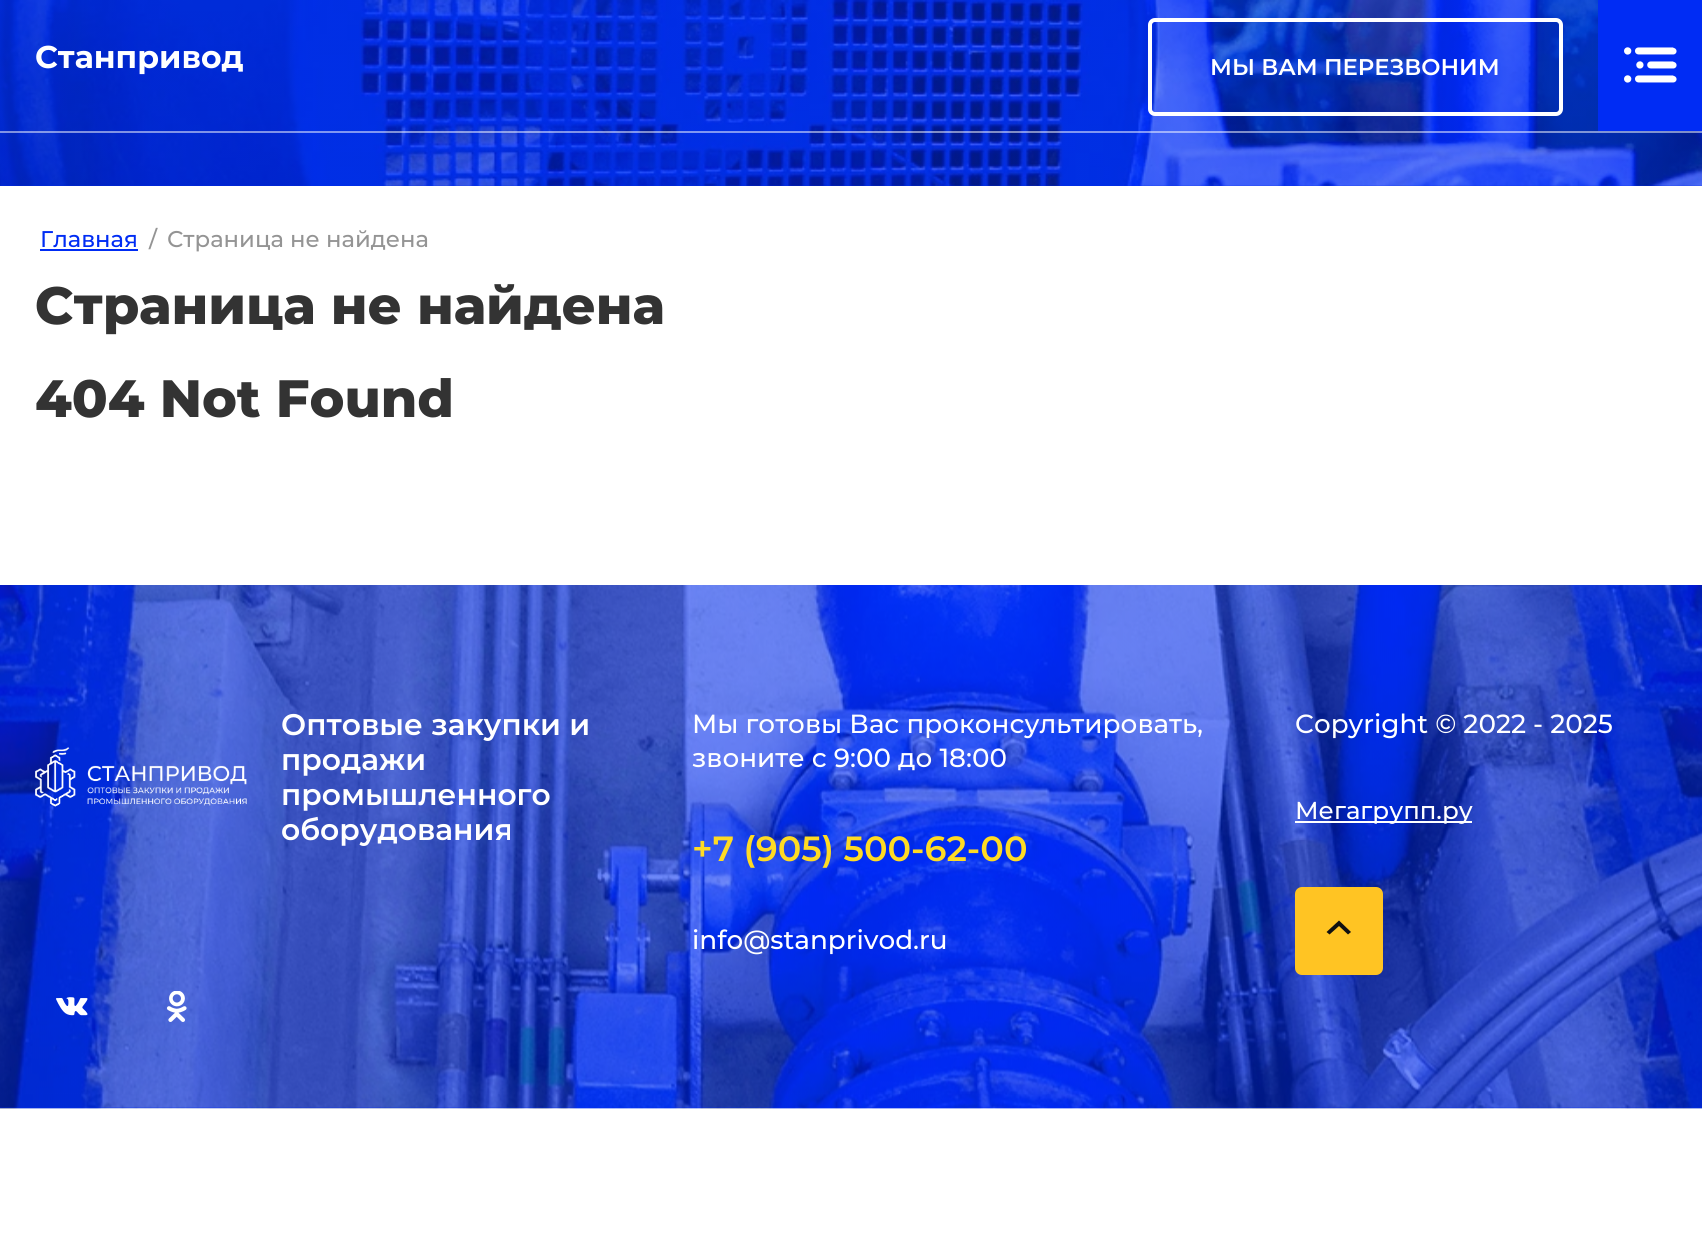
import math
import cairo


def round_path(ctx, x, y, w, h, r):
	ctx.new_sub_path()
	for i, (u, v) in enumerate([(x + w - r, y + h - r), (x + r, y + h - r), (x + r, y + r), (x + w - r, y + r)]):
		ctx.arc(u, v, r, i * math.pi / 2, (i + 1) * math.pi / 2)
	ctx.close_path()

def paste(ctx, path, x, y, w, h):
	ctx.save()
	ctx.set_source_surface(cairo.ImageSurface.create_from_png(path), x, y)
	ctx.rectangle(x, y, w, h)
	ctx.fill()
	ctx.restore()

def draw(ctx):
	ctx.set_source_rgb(1, 1, 1)
	ctx.paint()
	ctx.set_source_rgb(0, 0.173, 0.957)
	ctx.rectangle(0, 185, 1702, 1)
	ctx.fill()
	paste(ctx, 'media/1.png', 0, 0, 1702, 186)
	ctx.set_source_rgba(1, 1, 1, 0.5)
	ctx.rectangle(0, 131, 1702, 2)
	ctx.fill()
	ctx.select_font_face('Montserrat', cairo.FONT_SLANT_NORMAL, cairo.FONT_WEIGHT_BOLD)
	ctx.set_font_size(31.5)
	ctx.set_source_rgb(1, 1, 1)
	ctx.move_to(35, 68)
	ctx.show_text('Станпривод')
	round_path(ctx, 1150, 20, 411, 94, 5)
	ctx.set_line_width(4)
	ctx.stroke()
	ctx.select_font_face('Montserrat SemiBold')
	ctx.set_font_size(22.75)
	ctx.move_to(1210, 75)
	ctx.show_text('МЫ ВАМ ПЕРЕЗВОНИМ')
	ctx.set_source_rgb(0, 0.173, 0.957)
	ctx.rectangle(1598, 0, 104, 131)
	ctx.fill()
	paste(ctx, 'media/2.png', 1624, 47, 53, 36)
	ctx.select_font_face('Montserrat Medium')
	ctx.move_to(40, 247)
	ctx.show_text('Главная')
	ctx.rectangle(40, 249, 98, 2)
	ctx.fill()
	ctx.set_source_rgb(0.58, 0.58, 0.58)
	ctx.move_to(149, 247)
	ctx.show_text('/')
	ctx.move_to(167, 247)
	ctx.show_text('Страница не найдена')
	ctx.select_font_face('Montserrat ExtraBold')
	ctx.set_font_size(52.5)
	ctx.set_source_rgb(0.2, 0.2, 0.2)
	ctx.move_to(35, 324)
	ctx.show_text('Страница не найдена')
	ctx.move_to(35, 417)
	ctx.show_text('404 Not Found')
	ctx.set_source_rgb(0, 0.173, 0.957)
	ctx.rectangle(0, 1107, 1702, 1)
	ctx.fill()
	paste(ctx, 'media/3.png', 0, 585, 1702, 524)
	paste(ctx, 'media/4.png', 35, 747, 212, 60)
	ctx.select_font_face('Montserrat SemiBold')
	ctx.set_font_size(29.75)
	ctx.set_source_rgb(1, 1, 1)
	for x, y, s in [
		(281, 735, 'Оптовые закупки и'),
		(281, 770, 'продажи'),
		(281, 805, 'промышленного'),
		(281, 840, 'оборудования'),
	]:
		ctx.move_to(x, y)
		ctx.show_text(s)
	paste(ctx, 'media/5.png', 56, 997, 32, 19)
	paste(ctx, 'media/6.png', 166, 991, 21, 31)
	ctx.select_font_face('Montserrat Medium')
	ctx.set_font_size(26.25)
	ctx.move_to(692, 733)
	ctx.show_text('Мы готовы Вас проконсультировать,')
	ctx.move_to(692, 767)
	ctx.show_text('звоните с 9:00 до 18:00')
	ctx.select_font_face('Montserrat SemiBold')
	ctx.set_font_size(35)
	ctx.set_source_rgb(1, 0.859, 0.137)
	ctx.move_to(692, 861)
	ctx.show_text('+7 (905) 500-62-00')
	ctx.select_font_face('Montserrat Medium')
	ctx.set_font_size(26.25)
	ctx.set_source_rgb(1, 1, 1)
	ctx.move_to(692, 949)
	ctx.show_text('info@stanprivod.ru')
	ctx.move_to(1295, 733)
	ctx.show_text('Copyright © 2022 - 2025')
	ctx.rectangle(1295, 821, 177, 2)
	ctx.fill()
	ctx.set_font_size(24.5)
	ctx.move_to(1295, 819)
	ctx.show_text('Мегагрупп.ру')
	ctx.set_source_rgb(1, 0.769, 0.137)
	round_path(ctx, 1295, 887, 88, 88, 7)
	ctx.fill()
	ctx.set_source_rgb(0.067, 0.067, 0.067)
	ctx.set_fill_rule(cairo.FILL_RULE_EVEN_ODD)
	ctx.new_path()
	ctx.move_to(1348, 934.5)
	ctx.line_to(1339, 926)
	ctx.line_to(1329.5, 934.5)
	ctx.line_to(1326.5, 932)
	ctx.line_to(1339, 920.5)
	ctx.line_to(1351, 932)
	ctx.close_path()
	ctx.fill()


surface = cairo.ImageSurface(cairo.FORMAT_RGB24, 1702, 1242)
ctx = cairo.Context(surface)
options = cairo.FontOptions()
options.set_hint_metrics(cairo.HINT_METRICS_OFF)
options.set_hint_style(cairo.HINT_STYLE_NONE)
ctx.set_font_options(options)
ctx.set_miter_limit(4)
draw(ctx)
surface.write_to_png('image.png')
